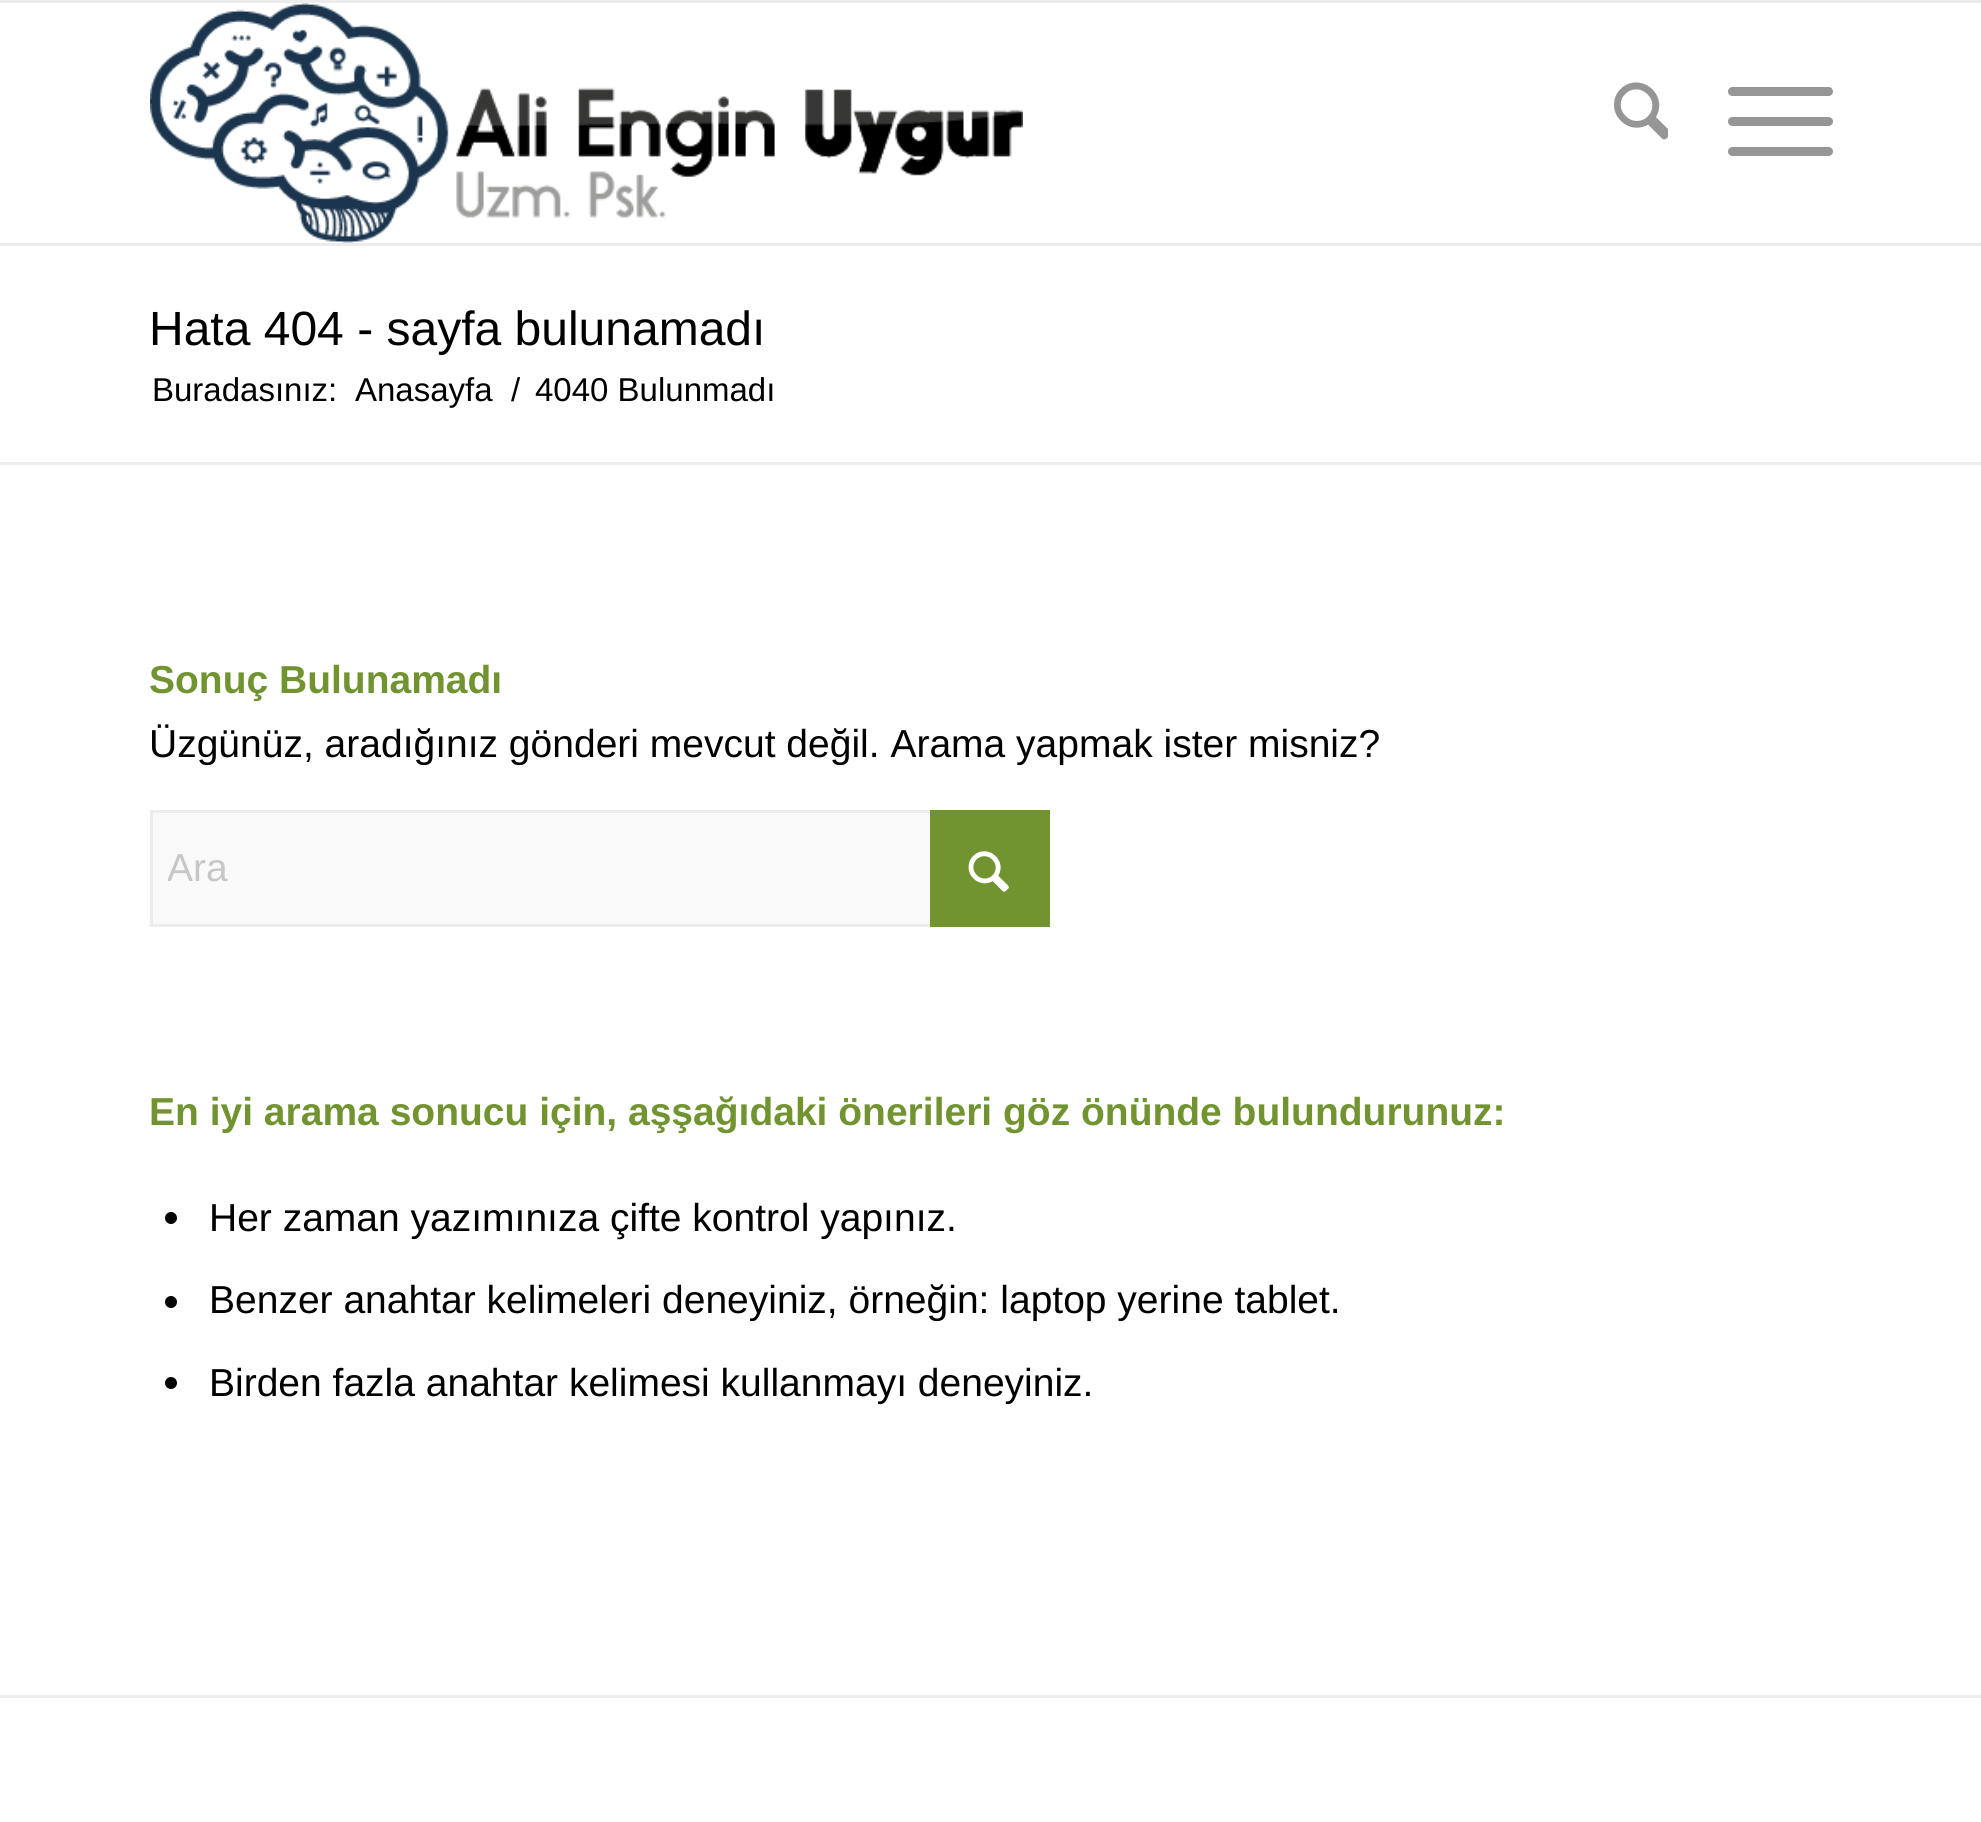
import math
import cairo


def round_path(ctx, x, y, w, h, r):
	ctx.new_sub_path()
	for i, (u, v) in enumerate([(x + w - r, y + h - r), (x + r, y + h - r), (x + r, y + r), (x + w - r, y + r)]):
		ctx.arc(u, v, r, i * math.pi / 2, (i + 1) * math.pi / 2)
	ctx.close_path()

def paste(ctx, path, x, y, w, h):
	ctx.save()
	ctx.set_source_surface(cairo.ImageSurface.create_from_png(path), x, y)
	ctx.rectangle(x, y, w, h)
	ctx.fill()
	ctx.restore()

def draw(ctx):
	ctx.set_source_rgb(1, 1, 1)
	ctx.paint()
	ctx.set_source_rgb(0.922, 0.922, 0.922)
	ctx.rectangle(0, 0, 1981, 3)
	ctx.fill()
	ctx.rectangle(0, 243, 1981, 3)
	ctx.fill()
	paste(ctx, 'media/1.png', 150, 3, 873, 240)
	paste(ctx, 'media/2.png', 1614, 82, 54, 58)
	ctx.set_source_rgb(0.588, 0.588, 0.588)
	round_path(ctx, 1728, 117, 105, 9, 4.5)
	ctx.fill()
	round_path(ctx, 1728, 87, 105, 9, 4.5)
	ctx.fill()
	round_path(ctx, 1728, 147, 105, 9, 4.5)
	ctx.fill()
	ctx.select_font_face('Liberation Sans')
	ctx.set_font_size(48)
	ctx.set_source_rgb(0, 0, 0)
	ctx.move_to(149, 345)
	ctx.show_text('Hata 404 - sayfa bulunamadı')
	ctx.set_font_size(33)
	for x, y, s in [
		(152, 401, 'Buradasınız:'),
		(355, 401, 'Anasayfa'),
		(511, 401, '/'),
		(535, 401, '4040 Bulunmadı'),
	]:
		ctx.move_to(x, y)
		ctx.show_text(s)
	ctx.set_source_rgb(0.922, 0.922, 0.922)
	ctx.rectangle(0, 462, 1981, 3)
	ctx.fill()
	ctx.select_font_face('Liberation Sans', cairo.FONT_SLANT_NORMAL, cairo.FONT_WEIGHT_BOLD)
	ctx.set_font_size(39)
	ctx.set_source_rgb(0.443, 0.58, 0.188)
	ctx.move_to(149, 693)
	ctx.show_text('Sonuç Bulunamadı')
	ctx.select_font_face('Liberation Sans')
	ctx.set_source_rgb(0, 0, 0)
	ctx.move_to(149, 757)
	ctx.show_text('Üzgünüz, aradığınız gönderi mevcut değil. Arama yapmak ister misniz?')
	ctx.set_source_rgb(0.973, 0.973, 0.973)
	ctx.rectangle(153, 813, 777, 111)
	ctx.fill()
	ctx.rectangle(151.5, 811.5, 897, 114)
	ctx.set_source_rgb(0.922, 0.922, 0.922)
	ctx.set_line_width(3)
	ctx.stroke()
	ctx.set_source_rgb(0.443, 0.58, 0.188)
	ctx.rectangle(930, 810, 120, 117)
	ctx.fill()
	ctx.save()
	ctx.rectangle(168, 846, 699, 45)
	ctx.clip()
	ctx.set_source_rgb(0.78, 0.78, 0.78)
	ctx.move_to(167, 881)
	ctx.show_text('Ara')
	ctx.restore()
	paste(ctx, 'media/3.png', 968, 851, 41, 41)
	ctx.select_font_face('Liberation Sans', cairo.FONT_SLANT_NORMAL, cairo.FONT_WEIGHT_BOLD)
	ctx.move_to(149, 1125)
	ctx.show_text('En iyi arama sonucu için, aşşağıdaki önerileri göz önünde bulundurunuz:')
	ctx.set_source_rgb(0, 0, 0)
	ctx.new_path()
	ctx.arc(171, 1218, 6, 0, 2 * math.pi)
	ctx.fill()
	ctx.select_font_face('Liberation Sans')
	ctx.move_to(209, 1231)
	ctx.show_text('Her zaman yazımınıza çifte kontrol yapınız.')
	ctx.new_path()
	ctx.arc(171, 1302, 6, 0, 2 * math.pi)
	ctx.fill()
	ctx.move_to(209, 1313)
	ctx.show_text('Benzer anahtar kelimeleri deneyiniz, örneğin: laptop yerine tablet.')
	ctx.new_path()
	ctx.arc(171, 1383, 6, 0, 2 * math.pi)
	ctx.fill()
	ctx.move_to(209, 1396)
	ctx.show_text('Birden fazla anahtar kelimesi kullanmayı deneyiniz.')
	ctx.set_source_rgb(0.922, 0.922, 0.922)
	ctx.rectangle(0, 1695, 1981, 3)
	ctx.fill()


surface = cairo.ImageSurface(cairo.FORMAT_RGB24, 1981, 1822)
ctx = cairo.Context(surface)
options = cairo.FontOptions()
options.set_hint_metrics(cairo.HINT_METRICS_OFF)
options.set_hint_style(cairo.HINT_STYLE_NONE)
ctx.set_font_options(options)
ctx.set_miter_limit(4)
draw(ctx)
surface.write_to_png('image.png')
